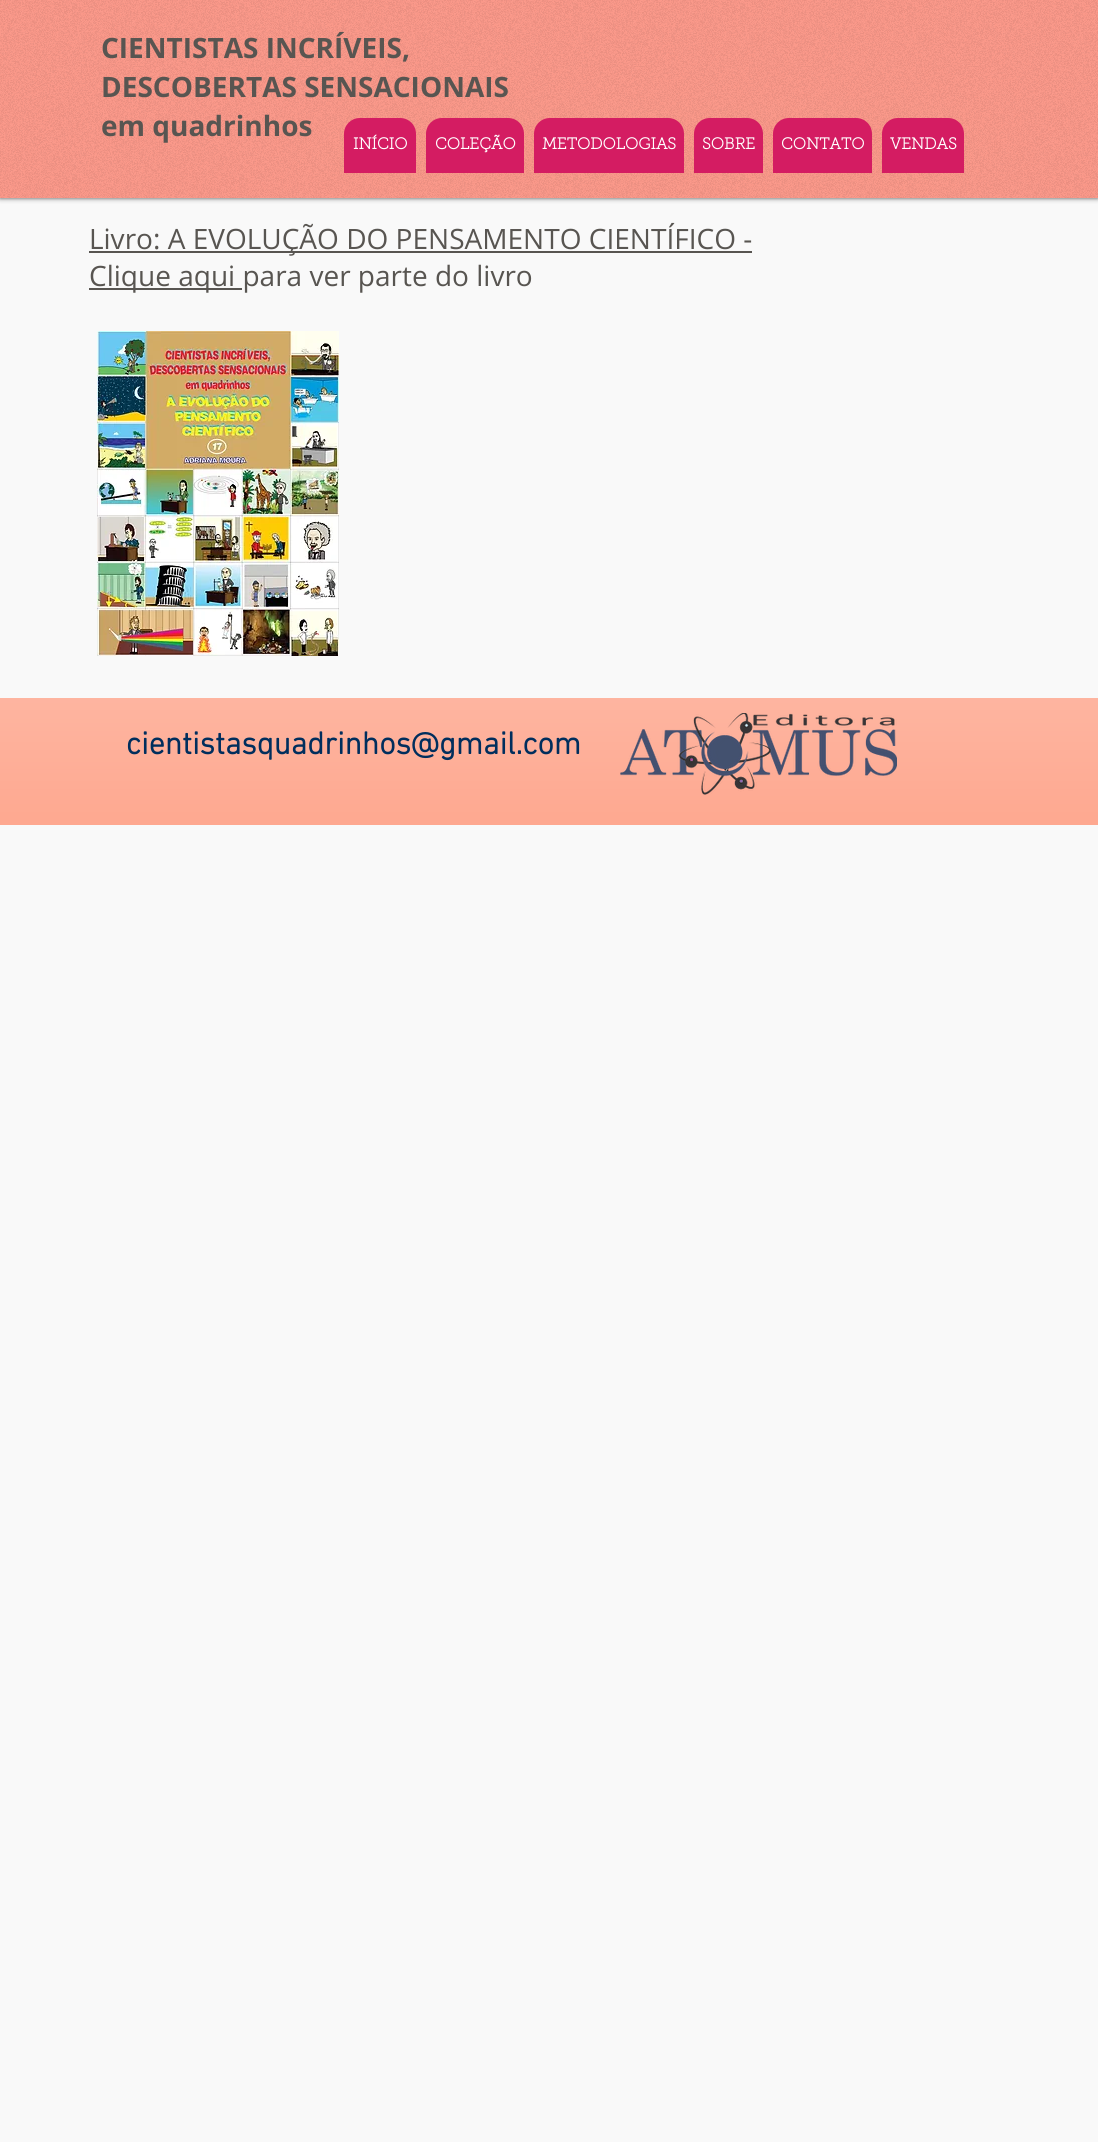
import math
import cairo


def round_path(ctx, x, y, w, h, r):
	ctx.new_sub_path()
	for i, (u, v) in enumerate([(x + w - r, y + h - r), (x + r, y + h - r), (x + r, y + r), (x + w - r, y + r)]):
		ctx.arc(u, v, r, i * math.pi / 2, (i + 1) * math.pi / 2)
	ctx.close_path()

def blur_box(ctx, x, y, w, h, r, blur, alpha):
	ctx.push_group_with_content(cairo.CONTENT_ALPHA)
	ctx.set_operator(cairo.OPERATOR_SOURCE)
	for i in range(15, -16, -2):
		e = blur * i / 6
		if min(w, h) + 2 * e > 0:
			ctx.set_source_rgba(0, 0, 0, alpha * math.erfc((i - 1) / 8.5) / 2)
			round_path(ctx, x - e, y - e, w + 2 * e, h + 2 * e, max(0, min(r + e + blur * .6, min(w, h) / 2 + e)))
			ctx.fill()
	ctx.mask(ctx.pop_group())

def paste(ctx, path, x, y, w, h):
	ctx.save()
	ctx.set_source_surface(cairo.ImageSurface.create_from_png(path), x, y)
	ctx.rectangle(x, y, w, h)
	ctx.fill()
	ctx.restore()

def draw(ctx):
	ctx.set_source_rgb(0.973, 0.973, 0.973)
	ctx.paint()
	ctx.set_source_rgb(0, 0, 0)
	blur_box(ctx, 0, 0, 1098, 198, 0, 2.5, 0.7)
	ctx.set_source_rgb(0.984, 0.596, 0.537)
	ctx.rectangle(0, 0, 1098, 198)
	ctx.fill()
	paste(ctx, 'media/1.png', 0, 0, 1098, 198)
	ctx.select_font_face('Open Sans', cairo.FONT_SLANT_NORMAL, cairo.FONT_WEIGHT_BOLD)
	ctx.set_font_size(28)
	ctx.set_source_rgb(0.345, 0.333, 0.318)
	for x, y, s in [
		(101, 58, 'CIENTISTAS INCRÍVEIS,'),
		(101, 97, 'DESCOBERTAS SENSACIONAIS'),
		(101, 136, 'em quadrinhos'),
	]:
		ctx.move_to(x, y)
		ctx.show_text(s)
	ctx.set_source_rgb(0.831, 0.11, 0.384)
	ctx.new_path()
	ctx.move_to(360, 118)
	ctx.line_to(400, 118)
	ctx.curve_to(409, 118, 416, 125, 416, 134)
	ctx.line_to(416, 173)
	ctx.line_to(344, 173)
	ctx.line_to(344, 134)
	ctx.curve_to(344, 125, 351, 118, 360, 118)
	ctx.close_path()
	ctx.fill()
	ctx.select_font_face('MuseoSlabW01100', cairo.FONT_SLANT_NORMAL, cairo.FONT_WEIGHT_BOLD)
	ctx.set_font_size(16)
	ctx.set_source_rgb(1, 1, 1)
	ctx.move_to(353, 149)
	ctx.show_text('INÍCIO')
	ctx.set_source_rgb(0.831, 0.11, 0.384)
	ctx.new_path()
	ctx.move_to(442, 118)
	ctx.line_to(508, 118)
	ctx.curve_to(517, 118, 524, 125, 524, 134)
	ctx.line_to(524, 173)
	ctx.line_to(426, 173)
	ctx.line_to(426, 134)
	ctx.curve_to(426, 125, 433, 118, 442, 118)
	ctx.close_path()
	ctx.fill()
	ctx.set_source_rgb(1, 1, 1)
	ctx.move_to(435, 149)
	ctx.show_text('COLEÇÃO')
	ctx.set_source_rgb(0.831, 0.11, 0.384)
	ctx.new_path()
	ctx.move_to(550, 118)
	ctx.line_to(668, 118)
	ctx.curve_to(677, 118, 684, 125, 684, 134)
	ctx.line_to(684, 173)
	ctx.line_to(534, 173)
	ctx.line_to(534, 134)
	ctx.curve_to(534, 125, 541, 118, 550, 118)
	ctx.close_path()
	ctx.fill()
	ctx.set_source_rgb(1, 1, 1)
	ctx.move_to(542, 149)
	ctx.show_text('METODOLOGIAS')
	ctx.set_source_rgb(0.831, 0.11, 0.384)
	ctx.new_path()
	ctx.move_to(710, 118)
	ctx.line_to(747, 118)
	ctx.curve_to(756, 118, 763, 125, 763, 134)
	ctx.line_to(763, 173)
	ctx.line_to(694, 173)
	ctx.line_to(694, 134)
	ctx.curve_to(694, 125, 701, 118, 710, 118)
	ctx.close_path()
	ctx.fill()
	ctx.set_source_rgb(1, 1, 1)
	ctx.move_to(702, 149)
	ctx.show_text('SOBRE')
	ctx.set_source_rgb(0.831, 0.11, 0.384)
	ctx.new_path()
	ctx.move_to(789, 118)
	ctx.line_to(856, 118)
	ctx.curve_to(865, 118, 872, 125, 872, 134)
	ctx.line_to(872, 173)
	ctx.line_to(773, 173)
	ctx.line_to(773, 134)
	ctx.curve_to(773, 125, 780, 118, 789, 118)
	ctx.close_path()
	ctx.fill()
	ctx.set_source_rgb(1, 1, 1)
	ctx.move_to(781, 149)
	ctx.show_text('CONTATO')
	ctx.set_source_rgb(0.831, 0.11, 0.384)
	ctx.new_path()
	ctx.move_to(898, 118)
	ctx.line_to(948, 118)
	ctx.curve_to(957, 118, 964, 125, 964, 134)
	ctx.line_to(964, 173)
	ctx.line_to(882, 173)
	ctx.line_to(882, 134)
	ctx.curve_to(882, 125, 889, 118, 898, 118)
	ctx.close_path()
	ctx.fill()
	ctx.set_source_rgb(1, 1, 1)
	ctx.move_to(890, 149)
	ctx.show_text('VENDAS')
	ctx.set_source_rgb(0.345, 0.333, 0.318)
	ctx.rectangle(89, 251, 663, 2)
	ctx.fill()
	ctx.select_font_face('Open Sans')
	ctx.set_font_size(28)
	ctx.move_to(89, 249)
	ctx.show_text('Livro: A EVOLUÇÃO DO PENSAMENTO CIENTÍFICO -')
	ctx.rectangle(89, 288, 153, 2)
	ctx.fill()
	ctx.move_to(89, 286)
	ctx.show_text('Clique aqui para ver parte do livro')
	paste(ctx, 'media/2.png', 97, 331, 242, 325)
	ctx.set_source_rgb(0.996, 0.608, 0.498)
	ctx.rectangle(0, 698, 1098, 127)
	ctx.fill()
	paste(ctx, 'media/3.png', 0, 698, 1098, 127)
	ctx.select_font_face('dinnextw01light', cairo.FONT_SLANT_NORMAL, cairo.FONT_WEIGHT_BOLD)
	ctx.set_font_size(32)
	ctx.set_source_rgb(0, 0.18, 0.365)
	ctx.move_to(126, 754)
	ctx.show_text('cientistasquadrinhos@gmail.com')
	paste(ctx, 'media/4.png', 620, 713, 277, 82)


surface = cairo.ImageSurface(cairo.FORMAT_RGB24, 1098, 2142)
ctx = cairo.Context(surface)
options = cairo.FontOptions()
options.set_hint_metrics(cairo.HINT_METRICS_OFF)
options.set_hint_style(cairo.HINT_STYLE_NONE)
ctx.set_font_options(options)
ctx.set_miter_limit(4)
draw(ctx)
surface.write_to_png('image.png')
